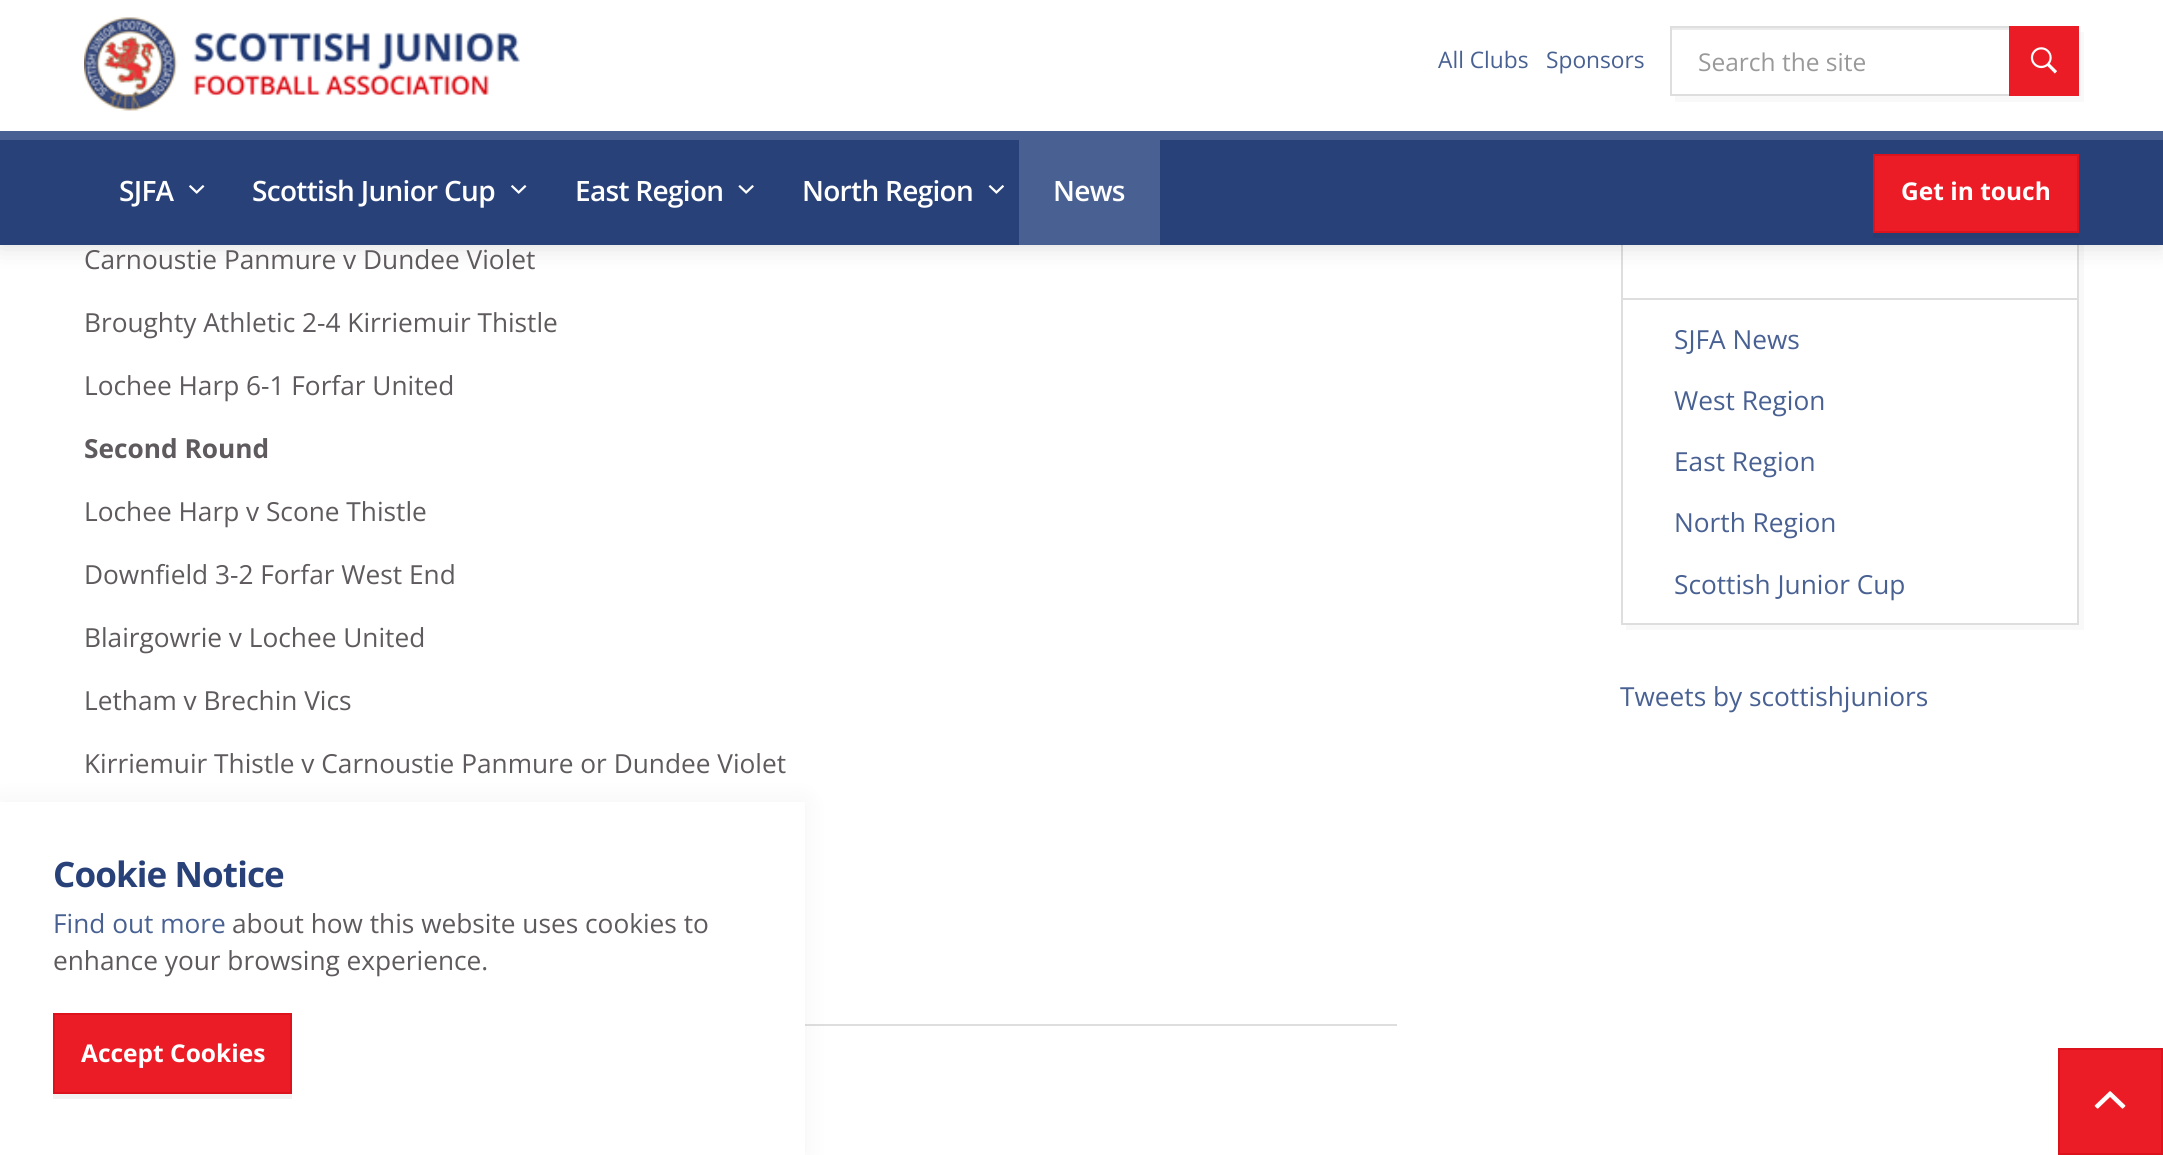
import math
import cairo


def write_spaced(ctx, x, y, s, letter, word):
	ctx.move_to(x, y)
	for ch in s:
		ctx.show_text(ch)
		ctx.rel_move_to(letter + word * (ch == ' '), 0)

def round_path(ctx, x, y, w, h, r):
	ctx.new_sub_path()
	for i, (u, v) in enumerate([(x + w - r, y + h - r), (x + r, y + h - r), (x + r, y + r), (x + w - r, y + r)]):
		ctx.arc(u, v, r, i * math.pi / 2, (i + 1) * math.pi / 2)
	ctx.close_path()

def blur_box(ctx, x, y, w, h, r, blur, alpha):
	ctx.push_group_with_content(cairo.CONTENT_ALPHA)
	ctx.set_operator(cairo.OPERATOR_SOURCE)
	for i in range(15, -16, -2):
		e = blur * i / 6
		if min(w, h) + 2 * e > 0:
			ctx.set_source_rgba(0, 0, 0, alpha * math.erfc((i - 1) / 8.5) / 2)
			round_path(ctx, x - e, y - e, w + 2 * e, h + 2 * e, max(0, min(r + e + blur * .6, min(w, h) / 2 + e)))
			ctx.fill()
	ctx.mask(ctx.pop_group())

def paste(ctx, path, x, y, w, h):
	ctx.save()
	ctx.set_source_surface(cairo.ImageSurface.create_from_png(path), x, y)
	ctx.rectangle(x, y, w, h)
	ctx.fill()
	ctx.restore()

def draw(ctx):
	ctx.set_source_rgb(1, 1, 1)
	ctx.paint()
	ctx.set_source_rgb(0.976, 0.976, 0.976)
	ctx.new_path()
	ctx.move_to(1626, 625)
	ctx.line_to(1626, 630)
	ctx.line_to(2084, 630)
	ctx.line_to(2084, 159)
	ctx.line_to(2079, 159)
	ctx.line_to(2079, 625)
	ctx.close_path()
	ctx.fill()
	ctx.rectangle(1622, 155, 456, 469)
	ctx.set_source_rgb(0.871, 0.871, 0.871)
	ctx.stroke()
	ctx.set_source_rgb(0, 0, 0)
	blur_box(ctx, 0, 0, 2163, 245, 0, 13, 0.15)
	ctx.set_source_rgb(1, 1, 1)
	ctx.rectangle(0, 0, 2163, 131)
	ctx.fill()
	paste(ctx, 'media/1.png', 84, 17, 436, 94)
	ctx.select_font_face('Open Sans')
	ctx.set_font_size(22.75)
	ctx.set_source_rgb(0.286, 0.38, 0.573)
	ctx.move_to(1438, 68)
	ctx.show_text('All Clubs')
	ctx.move_to(1546, 68)
	ctx.show_text('Sponsors')
	ctx.set_source_rgb(0.976, 0.976, 0.976)
	ctx.new_path()
	ctx.move_to(1675, 96)
	ctx.line_to(1675, 102)
	ctx.line_to(2084, 102)
	ctx.line_to(2084, 32)
	ctx.line_to(2079, 32)
	ctx.line_to(2079, 96)
	ctx.close_path()
	ctx.fill()
	ctx.set_source_rgb(0.925, 0.925, 0.925)
	ctx.rectangle(1671, 28, 338, 2)
	ctx.fill()
	ctx.rectangle(1671, 27, 407, 68)
	ctx.set_source_rgb(0.871, 0.871, 0.871)
	ctx.stroke()
	ctx.set_font_size(24.5)
	ctx.set_source_rgb(0.6, 0.6, 0.6)
	ctx.move_to(1698, 71)
	ctx.show_text('Search the site')
	ctx.set_source_rgb(0.925, 0.11, 0.149)
	ctx.rectangle(2009, 26, 70, 70)
	ctx.fill()
	paste(ctx, 'media/2.png', 2030, 47, 27, 27)
	ctx.set_source_rgb(0.161, 0.255, 0.475)
	ctx.rectangle(0, 140, 2163, 105)
	ctx.fill()
	ctx.select_font_face('Open Sans SemiBold')
	ctx.set_font_size(28)
	ctx.set_source_rgb(1, 1, 1)
	write_spaced(ctx, 119, 201, 'SJFA', -0.7, 0)
	paste(ctx, 'media/3.png', 189, 185, 16, 9)
	write_spaced(ctx, 252, 201, 'Scottish Junior Cup', -0.7, 0)
	paste(ctx, 'media/3.png', 511, 185, 16, 9)
	write_spaced(ctx, 575, 201, 'East Region', -0.7, 0)
	paste(ctx, 'media/4.png', 738, 185, 16, 9)
	write_spaced(ctx, 802, 201, 'North Region', -0.7, 0)
	paste(ctx, 'media/5.png', 988, 185, 16, 9)
	ctx.set_source_rgb(0.286, 0.38, 0.573)
	ctx.rectangle(1019, 140, 141, 105)
	ctx.fill()
	ctx.set_source_rgb(1, 1, 1)
	write_spaced(ctx, 1053, 201, 'News', -0.7, 0)
	ctx.set_source_rgb(0.153, 0.243, 0.451)
	ctx.rectangle(1873, 233, 206, 5)
	ctx.fill()
	ctx.set_source_rgb(0.925, 0.11, 0.149)
	ctx.rectangle(1874, 155, 204, 77)
	ctx.fill_preserve()
	ctx.set_source_rgb(0.863, 0.071, 0.11)
	ctx.stroke()
	ctx.select_font_face('Open Sans', cairo.FONT_SLANT_NORMAL, cairo.FONT_WEIGHT_BOLD)
	ctx.set_font_size(24.5)
	ctx.set_source_rgb(1, 1, 1)
	ctx.move_to(1901, 200)
	ctx.show_text('Get in touch')
	ctx.set_source_rgb(0.286, 0.38, 0.573)
	ctx.rectangle(0, 131, 2163, 9)
	ctx.fill()
	ctx.select_font_face('Open Sans')
	ctx.set_font_size(26.25)
	ctx.set_source_rgb(0.369, 0.353, 0.365)
	for x, y, s in [
		(84, 269, 'Carnoustie Panmure v Dundee Violet'),
		(84, 332, 'Broughty Athletic 2-4 Kirriemuir Thistle'),
		(84, 395, 'Lochee Harp 6-1 Forfar United'),
	]:
		ctx.move_to(x, y)
		ctx.show_text(s)
	ctx.select_font_face('Open Sans', cairo.FONT_SLANT_NORMAL, cairo.FONT_WEIGHT_BOLD)
	ctx.move_to(84, 458)
	ctx.show_text('Second Round')
	ctx.select_font_face('Open Sans')
	for x, y, s in [
		(84, 521, 'Lochee Harp v Scone Thistle'),
		(84, 584, 'Downfield 3-2 Forfar West End'),
		(84, 647, 'Blairgowrie v Lochee United'),
		(84, 710, 'Letham v Brechin Vics'),
		(84, 773, 'Kirriemuir Thistle v Carnoustie Panmure or Dundee Violet'),
	]:
		ctx.move_to(x, y)
		ctx.show_text(s)
	ctx.set_source_rgb(0.871, 0.871, 0.871)
	ctx.rectangle(805, 1024, 592, 2)
	ctx.fill()
	ctx.rectangle(1622, 298, 455, 2)
	ctx.fill()
	ctx.set_source_rgb(0.286, 0.38, 0.573)
	for x, y, s in [
		(1674, 349, 'SJFA News'),
		(1674, 410, 'West Region'),
		(1674, 471, 'East Region'),
		(1674, 532, 'North Region'),
		(1674, 594, 'Scottish Junior Cup'),
		(1620, 706, 'Tweets by scottishjuniors'),
	]:
		ctx.move_to(x, y)
		ctx.show_text(s)
	ctx.set_source_rgb(0.925, 0.11, 0.149)
	ctx.rectangle(2059, 1049, 103, 105)
	ctx.fill_preserve()
	ctx.set_source_rgb(0.863, 0.071, 0.11)
	ctx.stroke()
	paste(ctx, 'media/6.png', 2094, 1091, 32, 18)
	ctx.set_source_rgb(0, 0, 0)
	blur_box(ctx, 0, 802, 805, 353, 0, 13, 0.05)
	ctx.set_source_rgb(1, 1, 1)
	ctx.rectangle(0, 802, 805, 353)
	ctx.fill()
	ctx.select_font_face('Open Sans', cairo.FONT_SLANT_NORMAL, cairo.FONT_WEIGHT_BOLD)
	ctx.set_font_size(35)
	ctx.set_source_rgb(0.161, 0.255, 0.475)
	write_spaced(ctx, 53, 887, 'Cookie Notice', -0.9, 0)
	ctx.select_font_face('Open Sans')
	ctx.set_font_size(26.25)
	ctx.set_source_rgb(0.286, 0.38, 0.573)
	ctx.move_to(53, 933)
	ctx.show_text('Find out more')
	ctx.set_source_rgb(0.369, 0.353, 0.365)
	ctx.move_to(232, 933)
	ctx.show_text('about how this website uses cookies to')
	ctx.move_to(53, 970)
	ctx.show_text('enhance your browsing experience.')
	ctx.set_source_rgb(0.949, 0.949, 0.949)
	ctx.rectangle(53, 1094, 239, 5)
	ctx.fill()
	ctx.set_source_rgb(0.925, 0.11, 0.149)
	ctx.rectangle(54, 1014, 237, 79)
	ctx.fill_preserve()
	ctx.set_source_rgb(0.863, 0.071, 0.11)
	ctx.stroke()
	ctx.select_font_face('Open Sans', cairo.FONT_SLANT_NORMAL, cairo.FONT_WEIGHT_BOLD)
	ctx.set_font_size(24.5)
	ctx.set_source_rgb(1, 1, 1)
	ctx.move_to(81, 1062)
	ctx.show_text('Accept Cookies')


surface = cairo.ImageSurface(cairo.FORMAT_RGB24, 2163, 1155)
ctx = cairo.Context(surface)
options = cairo.FontOptions()
options.set_hint_metrics(cairo.HINT_METRICS_OFF)
options.set_hint_style(cairo.HINT_STYLE_NONE)
ctx.set_font_options(options)
ctx.set_miter_limit(4)
draw(ctx)
surface.write_to_png('image.png')
